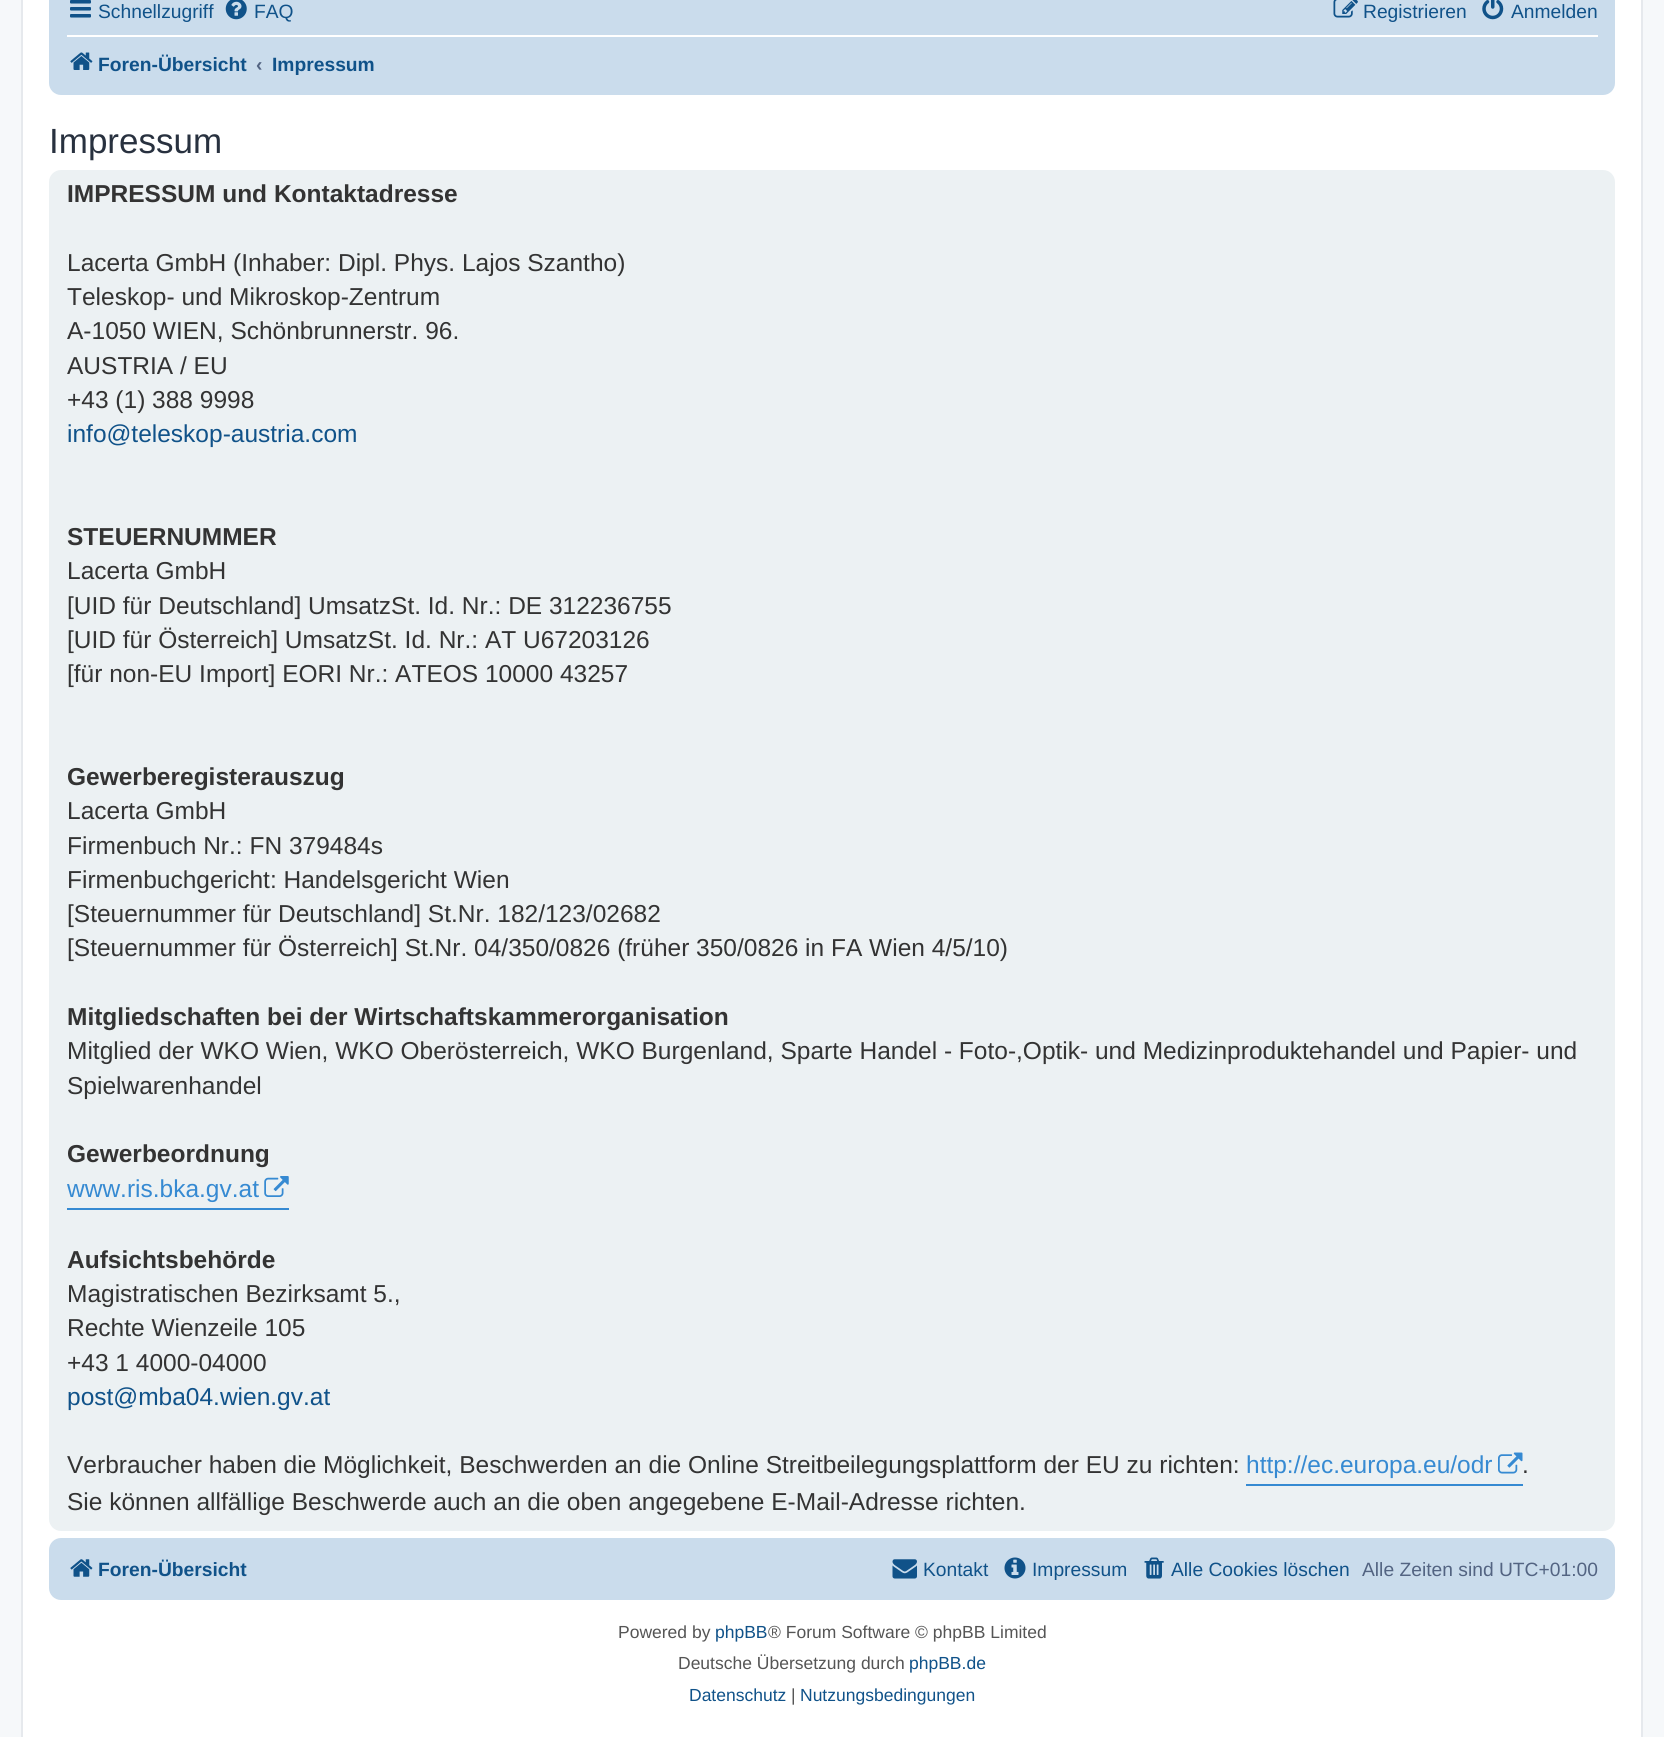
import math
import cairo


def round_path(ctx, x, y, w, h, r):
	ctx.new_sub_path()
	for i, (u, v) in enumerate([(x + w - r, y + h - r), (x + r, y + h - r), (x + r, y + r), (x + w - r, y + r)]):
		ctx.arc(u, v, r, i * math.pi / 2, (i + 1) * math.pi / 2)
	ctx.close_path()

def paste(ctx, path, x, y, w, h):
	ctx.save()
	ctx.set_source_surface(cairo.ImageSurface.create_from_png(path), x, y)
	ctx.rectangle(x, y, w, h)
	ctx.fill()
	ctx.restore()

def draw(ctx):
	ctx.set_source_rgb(0.961, 0.969, 0.98)
	ctx.paint()
	ctx.set_source_rgb(1, 1, 1)
	ctx.rectangle(22, -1, 1620, 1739)
	ctx.fill_preserve()
	ctx.set_source_rgb(0.902, 0.914, 0.929)
	ctx.stroke()
	ctx.set_source_rgb(0.792, 0.863, 0.922)
	round_path(ctx, 49, -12, 1566, 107, 12)
	ctx.fill()
	paste(ctx, 'media/1.png', 70, 0, 21, 18)
	ctx.select_font_face('Liberation Sans')
	ctx.set_font_size(19.25)
	ctx.set_source_rgb(0.063, 0.322, 0.537)
	ctx.move_to(98, 18)
	ctx.show_text('Schnellzugriff')
	paste(ctx, 'media/2.png', 225, 0, 22, 20)
	ctx.move_to(254, 18)
	ctx.show_text('FAQ')
	paste(ctx, 'media/3.png', 1333, 0, 25, 18)
	ctx.move_to(1363, 18)
	ctx.show_text('Registrieren')
	paste(ctx, 'media/4.png', 1482, 0, 22, 20)
	ctx.move_to(1511, 18)
	ctx.show_text('Anmelden')
	ctx.set_source_rgb(1, 1, 1)
	ctx.rectangle(67, 35, 1531, 2)
	ctx.fill()
	paste(ctx, 'media/5.png', 70, 52, 23, 18)
	ctx.select_font_face('Liberation Sans', cairo.FONT_SLANT_NORMAL, cairo.FONT_WEIGHT_BOLD)
	ctx.set_source_rgb(0.063, 0.322, 0.537)
	ctx.move_to(98, 71)
	ctx.show_text('Foren-Übersicht')
	ctx.set_source_rgb(0.325, 0.392, 0.51)
	ctx.move_to(256, 71)
	ctx.show_text('‹')
	ctx.set_source_rgb(0.063, 0.322, 0.537)
	ctx.move_to(272, 71)
	ctx.show_text('Impressum')
	ctx.select_font_face('Liberation Sans')
	ctx.set_font_size(35)
	ctx.set_source_rgb(0.157, 0.192, 0.247)
	ctx.move_to(49, 153)
	ctx.show_text('Impressum')
	ctx.set_source_rgb(0.925, 0.945, 0.953)
	round_path(ctx, 49, 170, 1566, 1361, 12)
	ctx.fill()
	ctx.select_font_face('Liberation Sans', cairo.FONT_SLANT_NORMAL, cairo.FONT_WEIGHT_BOLD)
	ctx.set_font_size(24.5)
	ctx.set_source_rgb(0.2, 0.2, 0.2)
	ctx.move_to(67, 202)
	ctx.show_text('IMPRESSUM und Kontaktadresse')
	ctx.select_font_face('Liberation Sans')
	for x, y, s in [
		(67, 271, 'Lacerta GmbH (Inhaber: Dipl. Phys. Lajos Szantho)'),
		(67, 305, 'Teleskop- und Mikroskop-Zentrum'),
		(67, 339, 'A-1050 WIEN, Schönbrunnerstr. 96.'),
		(67, 374, 'AUSTRIA / EU'),
		(67, 408, '+43 (1) 388 9998'),
	]:
		ctx.move_to(x, y)
		ctx.show_text(s)
	ctx.set_source_rgb(0.063, 0.322, 0.537)
	ctx.move_to(67, 442)
	ctx.show_text('info@teleskop-austria.com')
	ctx.select_font_face('Liberation Sans', cairo.FONT_SLANT_NORMAL, cairo.FONT_WEIGHT_BOLD)
	ctx.set_source_rgb(0.2, 0.2, 0.2)
	ctx.move_to(67, 545)
	ctx.show_text('STEUERNUMMER')
	ctx.select_font_face('Liberation Sans')
	for x, y, s in [
		(67, 579, 'Lacerta GmbH'),
		(67, 614, '[UID für Deutschland] UmsatzSt. Id. Nr.: DE 312236755'),
		(67, 648, '[UID für Österreich] UmsatzSt. Id. Nr.: AT U67203126'),
		(67, 682, '[für non-EU Import] EORI Nr.: ATEOS 10000 43257'),
	]:
		ctx.move_to(x, y)
		ctx.show_text(s)
	ctx.select_font_face('Liberation Sans', cairo.FONT_SLANT_NORMAL, cairo.FONT_WEIGHT_BOLD)
	ctx.move_to(67, 785)
	ctx.show_text('Gewerberegisterauszug')
	ctx.select_font_face('Liberation Sans')
	for x, y, s in [
		(67, 819, 'Lacerta GmbH'),
		(67, 854, 'Firmenbuch Nr.: FN 379484s'),
		(67, 888, 'Firmenbuchgericht: Handelsgericht Wien'),
		(67, 922, '[Steuernummer für Deutschland] St.Nr. 182/123/02682'),
		(67, 956, '[Steuernummer für Österreich] St.Nr. 04/350/0826 (früher 350/0826 in FA Wien 4/5/10)'),
	]:
		ctx.move_to(x, y)
		ctx.show_text(s)
	ctx.select_font_face('Liberation Sans', cairo.FONT_SLANT_NORMAL, cairo.FONT_WEIGHT_BOLD)
	ctx.move_to(67, 1025)
	ctx.show_text('Mitgliedschaften bei der Wirtschaftskammerorganisation')
	ctx.select_font_face('Liberation Sans')
	ctx.move_to(67, 1059)
	ctx.show_text('Mitglied der WKO Wien, WKO Oberösterreich, WKO Burgenland, Sparte Handel - Foto-,Optik- und Medizinproduktehandel und Papier- und')
	ctx.move_to(67, 1094)
	ctx.show_text('Spielwarenhandel')
	ctx.select_font_face('Liberation Sans', cairo.FONT_SLANT_NORMAL, cairo.FONT_WEIGHT_BOLD)
	ctx.move_to(67, 1162)
	ctx.show_text('Gewerbeordnung')
	ctx.set_source_rgb(0.212, 0.541, 0.824)
	ctx.rectangle(67, 1208, 222, 2)
	ctx.fill()
	ctx.select_font_face('Liberation Sans')
	ctx.move_to(67, 1197)
	ctx.show_text('www.ris.bka.gv.at')
	paste(ctx, 'media/6.png', 264, 1176, 25, 21)
	ctx.select_font_face('Liberation Sans', cairo.FONT_SLANT_NORMAL, cairo.FONT_WEIGHT_BOLD)
	ctx.set_source_rgb(0.2, 0.2, 0.2)
	ctx.move_to(67, 1268)
	ctx.show_text('Aufsichtsbehörde')
	ctx.select_font_face('Liberation Sans')
	for x, y, s in [
		(67, 1302, 'Magistratischen Bezirksamt 5.,'),
		(67, 1336, 'Rechte Wienzeile 105'),
		(67, 1371, '+43 1 4000-04000'),
	]:
		ctx.move_to(x, y)
		ctx.show_text(s)
	ctx.set_source_rgb(0.063, 0.322, 0.537)
	ctx.move_to(67, 1405)
	ctx.show_text('post@mba04.wien.gv.at')
	ctx.set_source_rgb(0.2, 0.2, 0.2)
	ctx.move_to(67, 1473)
	ctx.show_text('Verbraucher haben die Möglichkeit, Beschwerden an die Online Streitbeilegungsplattform der EU zu richten:')
	ctx.set_source_rgb(0.212, 0.541, 0.824)
	ctx.rectangle(1246, 1484, 277, 2)
	ctx.fill()
	ctx.move_to(1246, 1473)
	ctx.show_text('http://ec.europa.eu/odr')
	paste(ctx, 'media/7.png', 1498, 1452, 25, 22)
	ctx.set_source_rgb(0.2, 0.2, 0.2)
	ctx.move_to(1522, 1473)
	ctx.show_text('.')
	ctx.move_to(67, 1510)
	ctx.show_text('Sie können allfällige Beschwerde auch an die oben angegebene E-Mail-Adresse richten.')
	ctx.set_source_rgb(0.792, 0.863, 0.922)
	round_path(ctx, 49, 1538, 1566, 62, 12)
	ctx.fill()
	paste(ctx, 'media/8.png', 70, 1559, 23, 18)
	ctx.select_font_face('Liberation Sans', cairo.FONT_SLANT_NORMAL, cairo.FONT_WEIGHT_BOLD)
	ctx.set_font_size(19.25)
	ctx.set_source_rgb(0.063, 0.322, 0.537)
	ctx.move_to(98, 1576)
	ctx.show_text('Foren-Übersicht')
	paste(ctx, 'media/9.png', 892, 1559, 25, 20)
	ctx.select_font_face('Liberation Sans')
	ctx.move_to(923, 1576)
	ctx.show_text('Kontakt')
	paste(ctx, 'media/10.png', 1004, 1557, 22, 22)
	ctx.move_to(1032, 1576)
	ctx.show_text('Impressum')
	paste(ctx, 'media/11.png', 1144, 1557, 20, 22)
	ctx.move_to(1171, 1576)
	ctx.show_text('Alle Cookies löschen')
	ctx.set_source_rgb(0.325, 0.392, 0.51)
	ctx.move_to(1362, 1576)
	ctx.show_text('Alle Zeiten sind UTC+01:00')
	ctx.set_font_size(17.5)
	ctx.set_source_rgb(0.333, 0.333, 0.333)
	ctx.move_to(618, 1638)
	ctx.show_text('Powered by')
	ctx.set_source_rgb(0.063, 0.322, 0.537)
	ctx.move_to(715, 1638)
	ctx.show_text('phpBB')
	ctx.set_source_rgb(0.333, 0.333, 0.333)
	ctx.move_to(768, 1638)
	ctx.show_text('® Forum Software © phpBB Limited')
	ctx.move_to(678, 1669)
	ctx.show_text('Deutsche Übersetzung durch')
	ctx.set_source_rgb(0.063, 0.322, 0.537)
	ctx.move_to(909, 1669)
	ctx.show_text('phpBB.de')
	ctx.move_to(689, 1701)
	ctx.show_text('Datenschutz')
	ctx.set_source_rgb(0.333, 0.333, 0.333)
	ctx.move_to(791, 1701)
	ctx.show_text('|')
	ctx.set_source_rgb(0.063, 0.322, 0.537)
	ctx.move_to(800, 1701)
	ctx.show_text('Nutzungsbedingungen')


surface = cairo.ImageSurface(cairo.FORMAT_RGB24, 1664, 1737)
ctx = cairo.Context(surface)
options = cairo.FontOptions()
options.set_hint_metrics(cairo.HINT_METRICS_OFF)
options.set_hint_style(cairo.HINT_STYLE_NONE)
ctx.set_font_options(options)
ctx.set_miter_limit(4)
draw(ctx)
surface.write_to_png('image.png')
